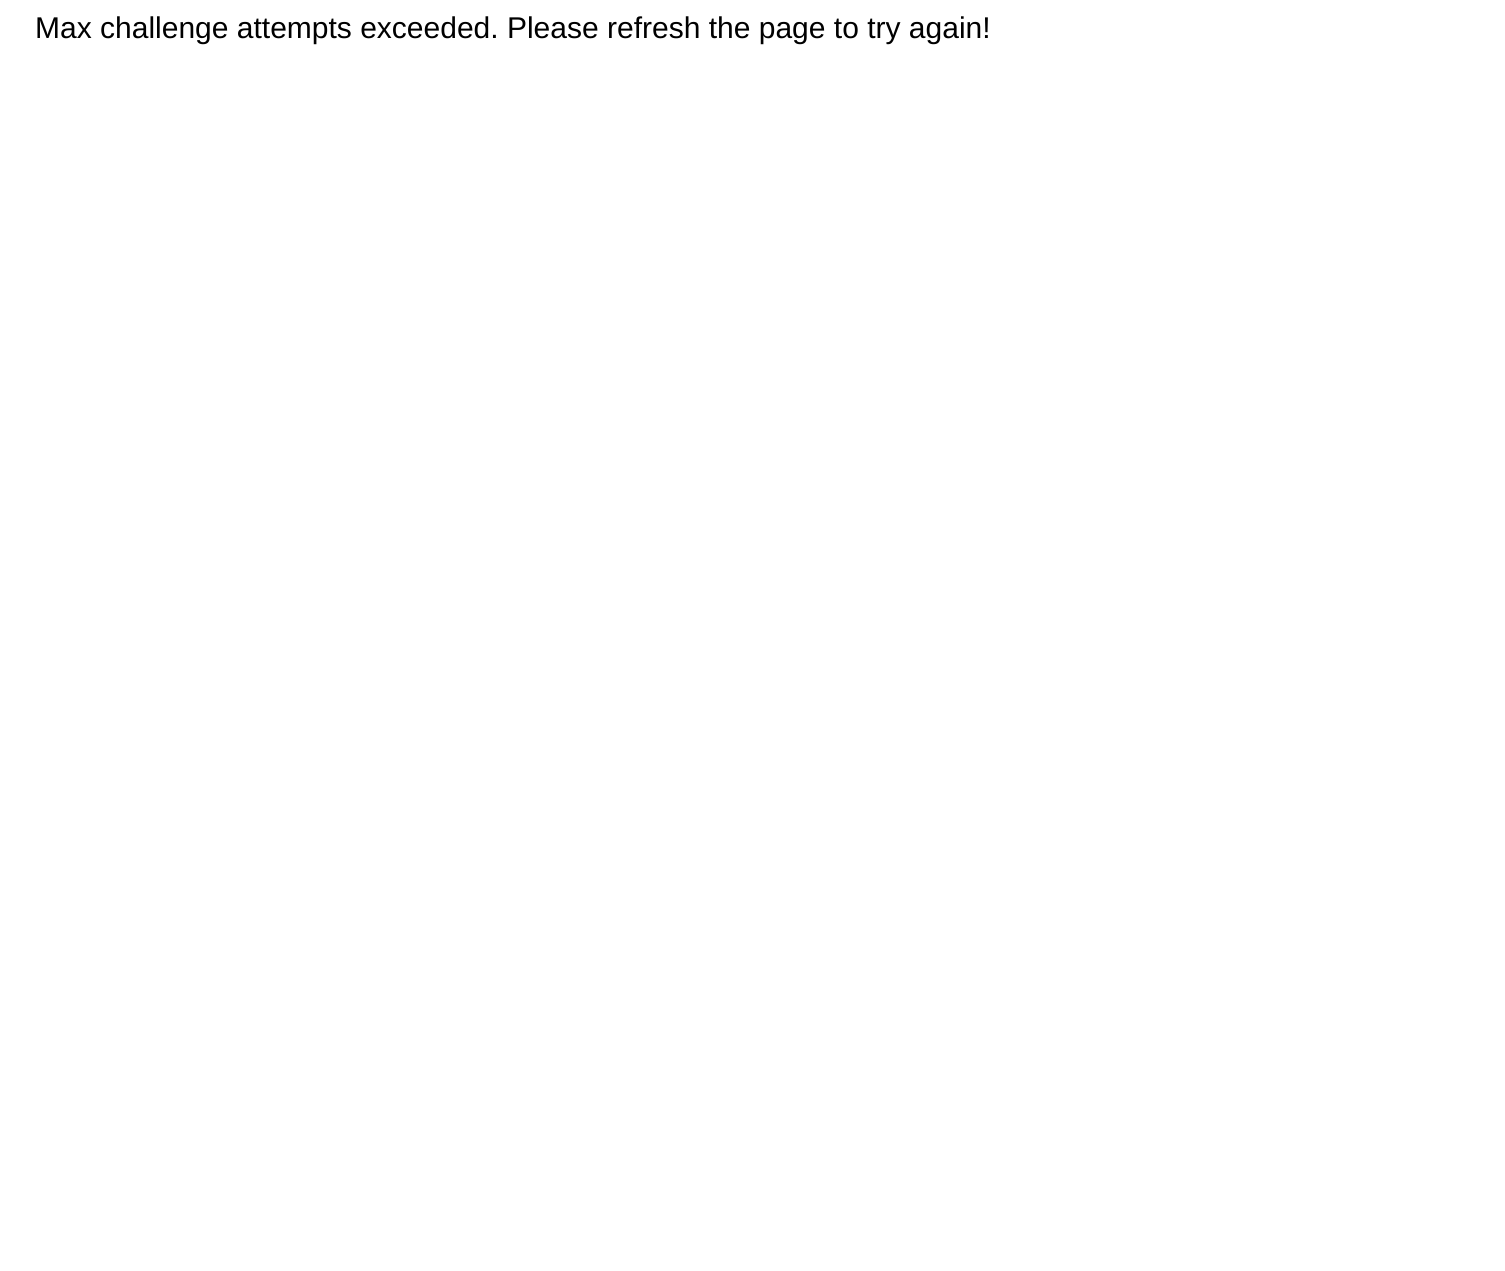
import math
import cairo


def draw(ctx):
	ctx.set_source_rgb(1, 1, 1)
	ctx.paint()
	ctx.select_font_face('Liberation Sans')
	ctx.set_font_size(30)
	ctx.set_source_rgb(0, 0, 0)
	ctx.move_to(35, 38)
	ctx.show_text('Max challenge attempts exceeded. Please refresh the page to try again!')


surface = cairo.ImageSurface(cairo.FORMAT_RGB24, 1505, 1271)
ctx = cairo.Context(surface)
options = cairo.FontOptions()
options.set_hint_metrics(cairo.HINT_METRICS_OFF)
options.set_hint_style(cairo.HINT_STYLE_NONE)
ctx.set_font_options(options)
ctx.set_miter_limit(4)
draw(ctx)
surface.write_to_png('image.png')
